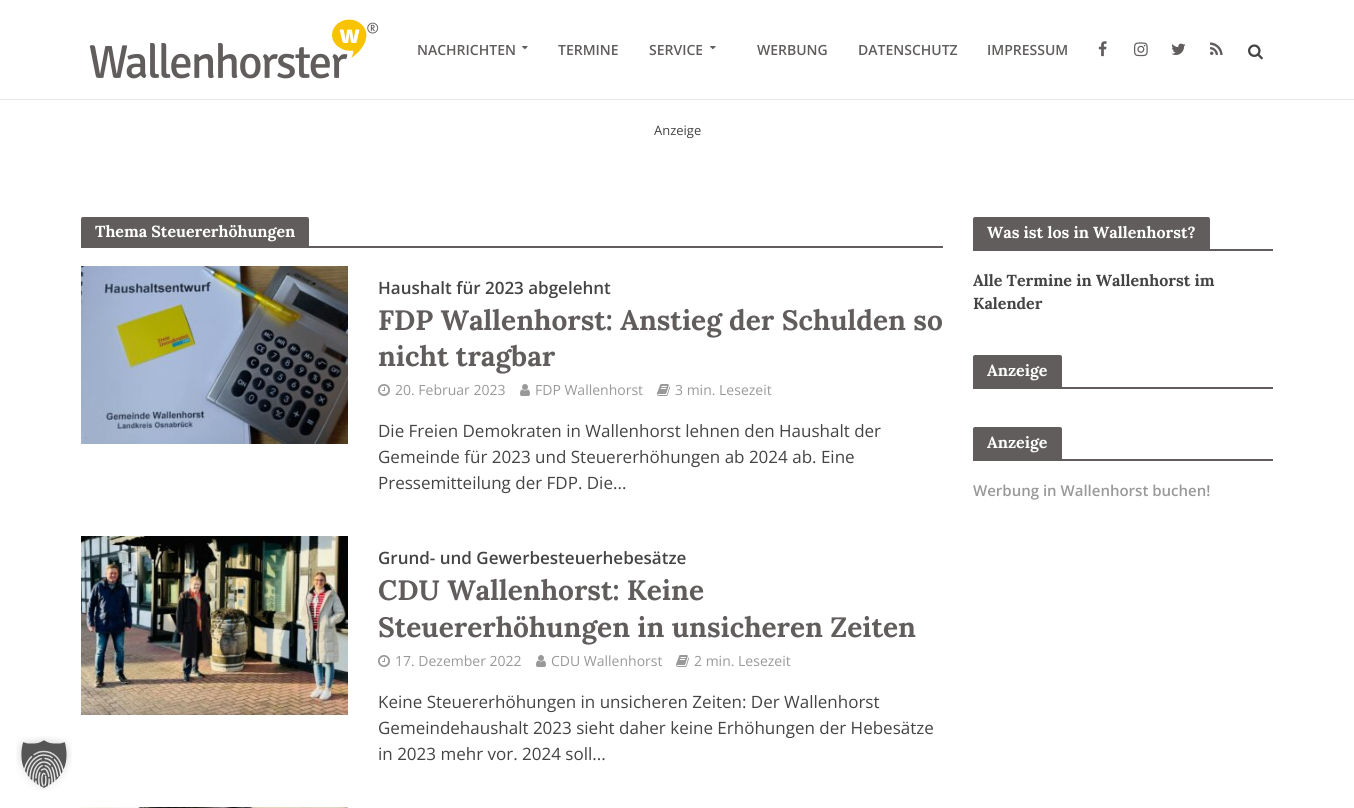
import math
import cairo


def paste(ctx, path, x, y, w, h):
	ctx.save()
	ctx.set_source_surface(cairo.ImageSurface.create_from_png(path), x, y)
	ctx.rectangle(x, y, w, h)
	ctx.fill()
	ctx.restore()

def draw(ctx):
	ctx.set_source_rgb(1, 1, 1)
	ctx.paint()
	ctx.set_source_rgb(0.906, 0.906, 0.906)
	ctx.rectangle(0, 99, 1354, 1)
	ctx.fill()
	paste(ctx, 'media/1.png', 89, 19, 290, 60)
	ctx.select_font_face('Open Sans SemiBold')
	ctx.set_font_size(14)
	ctx.set_source_rgb(0.376, 0.365, 0.361)
	ctx.move_to(417, 55)
	ctx.show_text('NACHRICHTEN')
	paste(ctx, 'media/2.png', 522, 46, 6, 4)
	ctx.move_to(558, 55)
	ctx.show_text('TERMINE')
	ctx.move_to(649, 55)
	ctx.show_text('SERVICE')
	paste(ctx, 'media/2.png', 710, 46, 6, 4)
	for x, y, s in [
		(757, 55, 'WERBUNG'),
		(858, 55, 'DATENSCHUTZ'),
		(987, 55, 'IMPRESSUM'),
	]:
		ctx.move_to(x, y)
		ctx.show_text(s)
	paste(ctx, 'media/3.png', 1098, 41, 9, 16)
	paste(ctx, 'media/4.png', 1134, 42, 14, 15)
	paste(ctx, 'media/5.png', 1171, 43, 15, 12)
	paste(ctx, 'media/6.png', 1210, 42, 13, 13)
	paste(ctx, 'media/7.png', 1248, 44, 15, 16)
	ctx.select_font_face('Open Sans')
	ctx.set_font_size(13)
	ctx.set_source_rgb(0.267, 0.267, 0.267)
	ctx.move_to(654, 135)
	ctx.show_text('Anzeige')
	paste(ctx, 'media/8.png', 16, 736, 56, 54)
	ctx.set_source_rgb(0.376, 0.365, 0.361)
	ctx.new_path()
	ctx.move_to(83, 217)
	ctx.line_to(307, 217)
	ctx.curve_to(308, 217, 309, 218, 309, 219)
	ctx.line_to(309, 246)
	ctx.line_to(81, 246)
	ctx.line_to(81, 219)
	ctx.curve_to(81, 218, 82, 217, 83, 217)
	ctx.close_path()
	ctx.fill()
	ctx.select_font_face('Lora', cairo.FONT_SLANT_NORMAL, cairo.FONT_WEIGHT_BOLD)
	ctx.set_font_size(16)
	ctx.set_source_rgb(1, 1, 1)
	ctx.move_to(95, 237)
	ctx.show_text('Thema Steuererhöhungen')
	ctx.set_source_rgb(0.376, 0.365, 0.361)
	ctx.rectangle(81, 246, 862, 2)
	ctx.fill()
	paste(ctx, 'media/9.png', 81, 266, 267, 178)
	ctx.select_font_face('Open Sans SemiBold')
	ctx.set_font_size(17)
	ctx.set_source_rgb(0.267, 0.267, 0.267)
	ctx.move_to(378, 294)
	ctx.show_text('Haushalt für 2023 abgelehnt')
	ctx.select_font_face('Lora', cairo.FONT_SLANT_NORMAL, cairo.FONT_WEIGHT_BOLD)
	ctx.set_font_size(28)
	ctx.set_source_rgb(0.376, 0.365, 0.361)
	ctx.move_to(378, 330)
	ctx.show_text('FDP Wallenhorst: Anstieg der Schulden so')
	ctx.move_to(378, 366)
	ctx.show_text('nicht tragbar')
	paste(ctx, 'media/10.png', 378, 384, 12, 12)
	ctx.select_font_face('Open Sans')
	ctx.set_font_size(14)
	ctx.set_source_rgb(0.6, 0.6, 0.6)
	ctx.move_to(395, 395)
	ctx.show_text('20. Februar 2023')
	paste(ctx, 'media/11.png', 520, 384, 10, 12)
	ctx.move_to(535, 395)
	ctx.show_text('FDP Wallenhorst')
	paste(ctx, 'media/12.png', 657, 384, 13, 12)
	ctx.move_to(675, 395)
	ctx.show_text('3 min. Lesezeit')
	ctx.set_font_size(17)
	ctx.set_source_rgb(0.267, 0.267, 0.267)
	for x, y, s in [
		(378, 437, 'Die Freien Demokraten in Wallenhorst lehnen den Haushalt der'),
		(378, 463, 'Gemeinde für 2023 und Steuererhöhungen ab 2024 ab. Eine'),
		(378, 489, 'Pressemitteilung der FDP. Die...'),
	]:
		ctx.move_to(x, y)
		ctx.show_text(s)
	paste(ctx, 'media/13.png', 81, 536, 267, 179)
	ctx.select_font_face('Open Sans SemiBold')
	ctx.move_to(378, 564)
	ctx.show_text('Grund- und Gewerbesteuerhebesätze')
	ctx.select_font_face('Lora', cairo.FONT_SLANT_NORMAL, cairo.FONT_WEIGHT_BOLD)
	ctx.set_font_size(28)
	ctx.set_source_rgb(0.376, 0.365, 0.361)
	ctx.move_to(378, 600)
	ctx.show_text('CDU Wallenhorst: Keine')
	ctx.move_to(378, 637)
	ctx.show_text('Steuererhöhungen in unsicheren Zeiten')
	paste(ctx, 'media/10.png', 378, 655, 12, 12)
	ctx.select_font_face('Open Sans')
	ctx.set_font_size(14)
	ctx.set_source_rgb(0.6, 0.6, 0.6)
	ctx.move_to(395, 666)
	ctx.show_text('17. Dezember 2022')
	paste(ctx, 'media/11.png', 536, 655, 10, 12)
	ctx.move_to(551, 666)
	ctx.show_text('CDU Wallenhorst')
	paste(ctx, 'media/12.png', 676, 655, 13, 12)
	ctx.move_to(694, 666)
	ctx.show_text('2 min. Lesezeit')
	ctx.set_font_size(17)
	ctx.set_source_rgb(0.267, 0.267, 0.267)
	for x, y, s in [
		(378, 708, 'Keine Steuererhöhungen in unsicheren Zeiten: Der Wallenhorst'),
		(378, 734, 'Gemeindehaushalt 2023 sieht daher keine Erhöhungen der Hebesätze'),
		(378, 760, 'in 2023 mehr vor. 2024 soll...'),
	]:
		ctx.move_to(x, y)
		ctx.show_text(s)
	paste(ctx, 'media/14.png', 81, 807, 267, 1)
	ctx.set_source_rgb(0.376, 0.365, 0.361)
	ctx.new_path()
	ctx.move_to(975, 217)
	ctx.line_to(1208, 217)
	ctx.curve_to(1209, 217, 1210, 218, 1210, 219)
	ctx.line_to(1210, 249)
	ctx.line_to(973, 249)
	ctx.line_to(973, 219)
	ctx.curve_to(973, 218, 974, 217, 975, 217)
	ctx.close_path()
	ctx.fill()
	ctx.select_font_face('Lora', cairo.FONT_SLANT_NORMAL, cairo.FONT_WEIGHT_BOLD)
	ctx.set_font_size(16)
	ctx.set_source_rgb(1, 1, 1)
	ctx.move_to(987, 238)
	ctx.show_text('Was ist los in Wallenhorst?')
	ctx.set_source_rgb(0.376, 0.365, 0.361)
	ctx.rectangle(973, 249, 300, 2)
	ctx.fill()
	ctx.set_source_rgb(0.267, 0.267, 0.267)
	ctx.move_to(973, 286)
	ctx.show_text('Alle Termine in Wallenhorst im')
	ctx.move_to(973, 309)
	ctx.show_text('Kalender')
	ctx.set_source_rgb(0.376, 0.365, 0.361)
	ctx.new_path()
	ctx.move_to(975, 355)
	ctx.line_to(1060, 355)
	ctx.curve_to(1061, 355, 1062, 356, 1062, 357)
	ctx.line_to(1062, 387)
	ctx.line_to(973, 387)
	ctx.line_to(973, 357)
	ctx.curve_to(973, 356, 974, 355, 975, 355)
	ctx.close_path()
	ctx.fill()
	ctx.set_source_rgb(1, 1, 1)
	ctx.move_to(987, 376)
	ctx.show_text('Anzeige')
	ctx.set_source_rgb(0.376, 0.365, 0.361)
	ctx.rectangle(973, 387, 300, 2)
	ctx.fill()
	ctx.new_path()
	ctx.move_to(975, 427)
	ctx.line_to(1060, 427)
	ctx.curve_to(1061, 427, 1062, 428, 1062, 429)
	ctx.line_to(1062, 459)
	ctx.line_to(973, 459)
	ctx.line_to(973, 429)
	ctx.curve_to(973, 428, 974, 427, 975, 427)
	ctx.close_path()
	ctx.fill()
	ctx.set_source_rgb(1, 1, 1)
	ctx.move_to(987, 448)
	ctx.show_text('Anzeige')
	ctx.set_source_rgb(0.376, 0.365, 0.361)
	ctx.rectangle(973, 459, 300, 2)
	ctx.fill()
	ctx.select_font_face('Open Sans SemiBold')
	ctx.set_font_size(15)
	ctx.set_source_rgb(0.6, 0.6, 0.6)
	ctx.move_to(973, 496)
	ctx.show_text('Werbung in Wallenhorst buchen!')


surface = cairo.ImageSurface(cairo.FORMAT_RGB24, 1354, 808)
ctx = cairo.Context(surface)
options = cairo.FontOptions()
options.set_hint_metrics(cairo.HINT_METRICS_OFF)
options.set_hint_style(cairo.HINT_STYLE_NONE)
ctx.set_font_options(options)
ctx.set_miter_limit(4)
draw(ctx)
surface.write_to_png('image.png')
